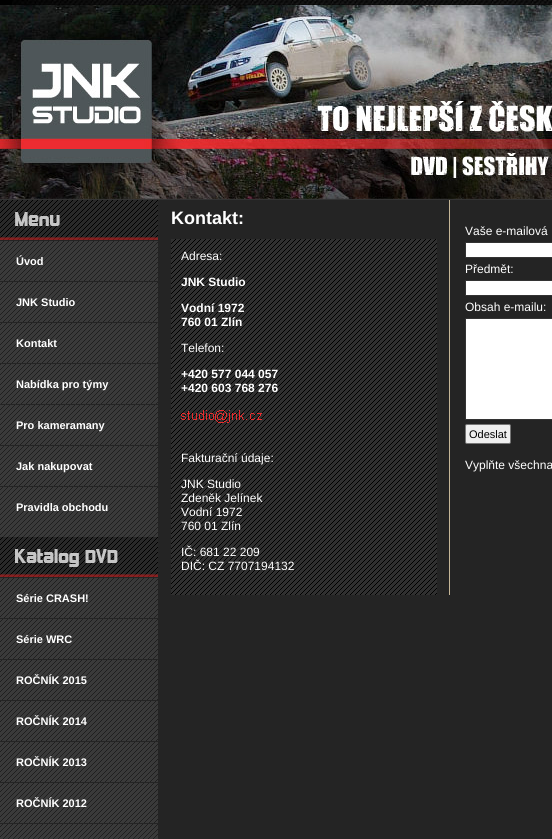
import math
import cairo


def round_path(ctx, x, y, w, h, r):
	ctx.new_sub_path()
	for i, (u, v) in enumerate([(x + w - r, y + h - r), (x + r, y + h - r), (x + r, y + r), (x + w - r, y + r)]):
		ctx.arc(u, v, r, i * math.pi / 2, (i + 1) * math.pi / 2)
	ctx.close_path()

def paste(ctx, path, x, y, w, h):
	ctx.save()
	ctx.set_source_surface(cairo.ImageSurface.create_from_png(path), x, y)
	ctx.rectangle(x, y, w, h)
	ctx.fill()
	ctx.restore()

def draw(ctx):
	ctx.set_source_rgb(0, 0, 0)
	ctx.paint()
	paste(ctx, 'media/1.png', 12, 0, 540, 5)
	paste(ctx, 'media/2.png', 0, 5, 552, 194)
	ctx.set_source_rgb(0.2, 0.2, 0.2)
	ctx.rectangle(0, 199, 552, 1)
	ctx.fill()
	ctx.set_source_rgb(0.141, 0.141, 0.141)
	ctx.rectangle(158, 200, 394, 639)
	ctx.fill()
	paste(ctx, 'media/3.png', 0, 241, 158, 296)
	paste(ctx, 'media/4.png', 0, 200, 158, 40)
	ctx.rectangle(0, 240, 158, 1)
	ctx.fill()
	ctx.select_font_face('Liberation Sans', cairo.FONT_SLANT_NORMAL, cairo.FONT_WEIGHT_BOLD)
	ctx.set_font_size(11)
	ctx.set_source_rgb(1, 1, 1)
	ctx.move_to(16, 265)
	ctx.show_text('Úvod')
	ctx.set_source_rgb(0.141, 0.141, 0.141)
	ctx.rectangle(0, 281, 158, 1)
	ctx.fill()
	ctx.set_source_rgb(1, 1, 1)
	ctx.move_to(16, 306)
	ctx.show_text('JNK Studio')
	ctx.set_source_rgb(0.141, 0.141, 0.141)
	ctx.rectangle(0, 322, 158, 1)
	ctx.fill()
	ctx.set_source_rgb(1, 1, 1)
	ctx.move_to(16, 347)
	ctx.show_text('Kontakt')
	ctx.set_source_rgb(0.141, 0.141, 0.141)
	ctx.rectangle(0, 363, 158, 1)
	ctx.fill()
	ctx.set_source_rgb(1, 1, 1)
	ctx.move_to(16, 388)
	ctx.show_text('Nabídka pro týmy')
	ctx.set_source_rgb(0.141, 0.141, 0.141)
	ctx.rectangle(0, 404, 158, 1)
	ctx.fill()
	ctx.set_source_rgb(1, 1, 1)
	ctx.move_to(16, 429)
	ctx.show_text('Pro kameramany')
	ctx.set_source_rgb(0.141, 0.141, 0.141)
	ctx.rectangle(0, 445, 158, 1)
	ctx.fill()
	ctx.set_source_rgb(1, 1, 1)
	ctx.move_to(16, 470)
	ctx.show_text('Jak nakupovat')
	ctx.set_source_rgb(0.141, 0.141, 0.141)
	ctx.rectangle(0, 486, 158, 1)
	ctx.fill()
	ctx.set_source_rgb(1, 1, 1)
	ctx.move_to(16, 511)
	ctx.show_text('Pravidla obchodu')
	paste(ctx, 'media/5.png', 0, 578, 158, 261)
	paste(ctx, 'media/6.png', 0, 537, 158, 40)
	ctx.set_source_rgb(0.141, 0.141, 0.141)
	ctx.rectangle(0, 577, 158, 1)
	ctx.fill()
	ctx.set_source_rgb(1, 1, 1)
	ctx.move_to(16, 602)
	ctx.show_text('Série CRASH!')
	ctx.set_source_rgb(0.141, 0.141, 0.141)
	ctx.rectangle(0, 618, 158, 1)
	ctx.fill()
	ctx.set_source_rgb(1, 1, 1)
	ctx.move_to(16, 643)
	ctx.show_text('Série WRC')
	ctx.set_source_rgb(0.141, 0.141, 0.141)
	ctx.rectangle(0, 659, 158, 1)
	ctx.fill()
	ctx.set_source_rgb(1, 1, 1)
	ctx.move_to(16, 684)
	ctx.show_text('ROČNÍK 2015')
	ctx.set_source_rgb(0.141, 0.141, 0.141)
	ctx.rectangle(0, 700, 158, 1)
	ctx.fill()
	ctx.set_source_rgb(1, 1, 1)
	ctx.move_to(16, 725)
	ctx.show_text('ROČNÍK 2014')
	ctx.set_source_rgb(0.141, 0.141, 0.141)
	ctx.rectangle(0, 741, 158, 1)
	ctx.fill()
	ctx.set_source_rgb(1, 1, 1)
	ctx.move_to(16, 766)
	ctx.show_text('ROČNÍK 2013')
	ctx.set_source_rgb(0.141, 0.141, 0.141)
	ctx.rectangle(0, 782, 158, 1)
	ctx.fill()
	ctx.set_source_rgb(1, 1, 1)
	ctx.move_to(16, 807)
	ctx.show_text('ROČNÍK 2012')
	ctx.set_source_rgb(0.141, 0.141, 0.141)
	ctx.rectangle(0, 823, 158, 1)
	ctx.fill()
	ctx.set_font_size(18)
	ctx.set_source_rgb(1, 1, 1)
	ctx.move_to(171, 224)
	ctx.show_text('Kontakt:')
	ctx.set_source_rgb(0.188, 0.188, 0.188)
	ctx.rectangle(171, 239, 266, 356)
	ctx.fill()
	paste(ctx, 'media/7.png', 171, 239, 266, 356)
	ctx.select_font_face('Liberation Sans')
	ctx.set_font_size(12)
	ctx.set_source_rgb(1, 1, 1)
	ctx.move_to(181, 260)
	ctx.show_text('Adresa:')
	ctx.select_font_face('Liberation Sans', cairo.FONT_SLANT_NORMAL, cairo.FONT_WEIGHT_BOLD)
	for x, y, s in [
		(181, 286, 'JNK Studio'),
		(181, 312, 'Vodní 1972'),
		(181, 326, '760 01 Zlín'),
	]:
		ctx.move_to(x, y)
		ctx.show_text(s)
	ctx.select_font_face('Liberation Sans')
	ctx.move_to(181, 352)
	ctx.show_text('Telefon:')
	ctx.select_font_face('Liberation Sans', cairo.FONT_SLANT_NORMAL, cairo.FONT_WEIGHT_BOLD)
	ctx.move_to(181, 378)
	ctx.show_text('+420 577 044 057')
	ctx.move_to(181, 392)
	ctx.show_text('+420 603 768 276')
	paste(ctx, 'media/8.png', 181, 410, 81, 13)
	ctx.select_font_face('Liberation Sans')
	for x, y, s in [
		(181, 462, 'Fakturační údaje:'),
		(181, 488, 'JNK Studio'),
		(181, 502, 'Zdeněk Jelínek'),
		(181, 516, 'Vodní 1972'),
		(181, 530, '760 01 Zlín'),
		(181, 556, 'IČ: 681 22 209'),
		(181, 570, 'DIČ: CZ 7707194132'),
	]:
		ctx.move_to(x, y)
		ctx.show_text(s)
	ctx.set_source_rgb(0.773, 0.714, 0.592)
	ctx.rectangle(449, 200, 1, 395)
	ctx.fill()
	ctx.set_source_rgb(1, 1, 1)
	ctx.move_to(465, 235)
	ctx.show_text('Vaše e-mailová')
	ctx.rectangle(465.5, 242.5, 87, 15)
	ctx.fill_preserve()
	ctx.set_source_rgb(0.2, 0.2, 0.2)
	ctx.set_line_width(1)
	ctx.stroke()
	ctx.set_source_rgb(1, 1, 1)
	ctx.move_to(465, 273)
	ctx.show_text('Předmět:')
	ctx.rectangle(465.5, 280.5, 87, 15)
	ctx.fill_preserve()
	ctx.set_source_rgb(0.2, 0.2, 0.2)
	ctx.stroke()
	ctx.set_source_rgb(1, 1, 1)
	ctx.move_to(465, 311)
	ctx.show_text('Obsah e-mailu:')
	ctx.rectangle(465.5, 318.5, 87, 101)
	ctx.fill_preserve()
	ctx.set_source_rgb(0.2, 0.2, 0.2)
	ctx.stroke()
	ctx.set_source_rgb(0.937, 0.937, 0.937)
	round_path(ctx, 465.5, 424.5, 45, 19, 1.5)
	ctx.fill_preserve()
	ctx.set_source_rgb(0.463, 0.463, 0.463)
	ctx.stroke()
	ctx.set_font_size(11)
	ctx.set_source_rgb(0, 0, 0)
	ctx.move_to(469, 438)
	ctx.show_text('Odeslat')
	ctx.set_font_size(12)
	ctx.set_source_rgb(1, 1, 1)
	ctx.move_to(465, 469)
	ctx.show_text('Vyplňte všechna')


surface = cairo.ImageSurface(cairo.FORMAT_RGB24, 552, 839)
ctx = cairo.Context(surface)
options = cairo.FontOptions()
options.set_hint_metrics(cairo.HINT_METRICS_OFF)
options.set_hint_style(cairo.HINT_STYLE_NONE)
ctx.set_font_options(options)
ctx.set_miter_limit(4)
draw(ctx)
surface.write_to_png('image.png')
